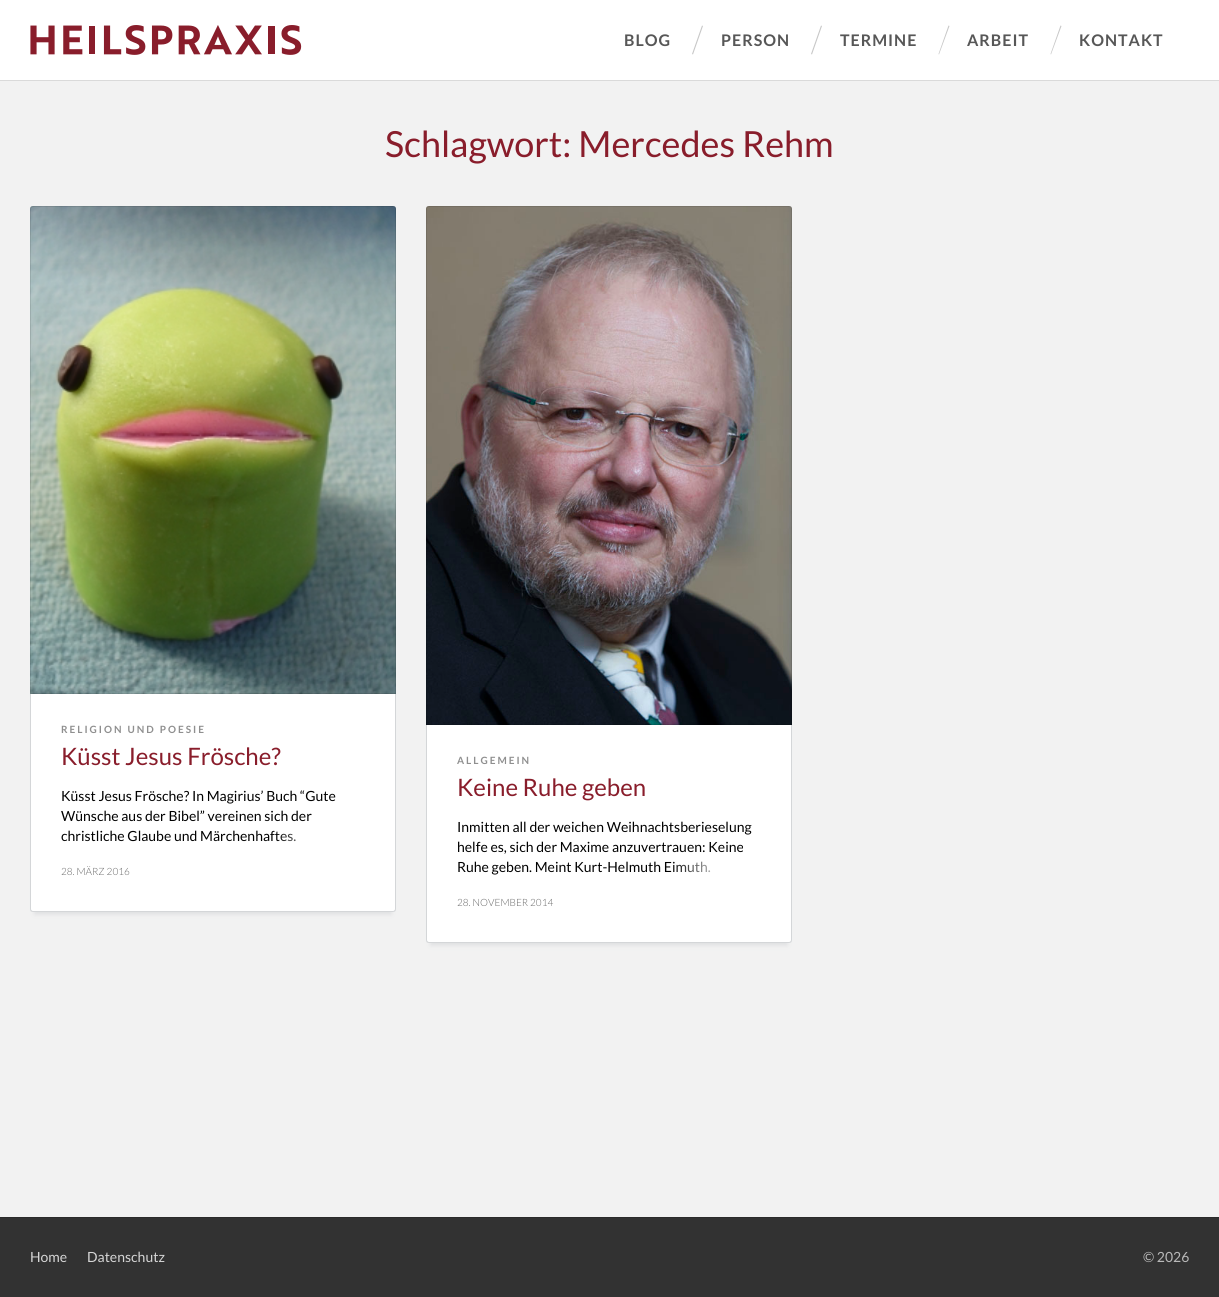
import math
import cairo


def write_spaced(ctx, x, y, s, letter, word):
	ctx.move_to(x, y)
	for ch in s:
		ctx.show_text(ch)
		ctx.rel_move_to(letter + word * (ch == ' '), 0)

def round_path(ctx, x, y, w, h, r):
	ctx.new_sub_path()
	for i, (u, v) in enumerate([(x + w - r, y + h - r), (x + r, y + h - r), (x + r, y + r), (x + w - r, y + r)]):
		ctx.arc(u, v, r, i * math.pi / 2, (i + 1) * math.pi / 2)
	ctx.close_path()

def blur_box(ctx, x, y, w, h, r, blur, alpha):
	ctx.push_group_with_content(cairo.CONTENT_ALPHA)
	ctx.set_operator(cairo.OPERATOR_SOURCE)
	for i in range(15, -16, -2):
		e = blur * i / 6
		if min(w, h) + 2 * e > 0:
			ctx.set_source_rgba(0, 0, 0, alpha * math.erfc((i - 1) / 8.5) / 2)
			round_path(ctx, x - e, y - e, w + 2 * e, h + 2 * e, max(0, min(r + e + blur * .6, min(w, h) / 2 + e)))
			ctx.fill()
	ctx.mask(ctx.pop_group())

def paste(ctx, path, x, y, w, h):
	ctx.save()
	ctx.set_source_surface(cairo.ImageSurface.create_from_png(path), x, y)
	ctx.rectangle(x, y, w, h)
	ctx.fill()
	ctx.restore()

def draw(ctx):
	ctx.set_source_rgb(0.949, 0.949, 0.949)
	ctx.paint()
	ctx.set_source_rgb(0.855, 0.855, 0.855)
	ctx.rectangle(0, 80, 1219, 1)
	ctx.fill()
	ctx.set_source_rgb(1, 1, 1)
	ctx.rectangle(0, 0, 1219, 80)
	ctx.fill()
	paste(ctx, 'media/1.png', 30, 25, 272, 30)
	ctx.select_font_face('Lato', cairo.FONT_SLANT_NORMAL, cairo.FONT_WEIGHT_BOLD)
	ctx.set_font_size(16)
	ctx.set_source_rgb(0.341, 0.341, 0.341)
	write_spaced(ctx, 624, 46, 'BLOG', 1, 0)
	ctx.set_source_rgb(0.78, 0.78, 0.78)
	ctx.new_path()
	ctx.move_to(702, 25.5)
	ctx.line_to(703, 26)
	ctx.line_to(693, 54.5)
	ctx.line_to(692, 54)
	ctx.close_path()
	ctx.fill()
	ctx.set_source_rgb(0.341, 0.341, 0.341)
	write_spaced(ctx, 721, 46, 'PERSON', 1, 0)
	ctx.set_source_rgb(0.78, 0.78, 0.78)
	ctx.new_path()
	ctx.move_to(821, 25.5)
	ctx.line_to(822, 26)
	ctx.line_to(812, 54.5)
	ctx.line_to(811, 54)
	ctx.close_path()
	ctx.fill()
	ctx.set_source_rgb(0.341, 0.341, 0.341)
	write_spaced(ctx, 840, 46, 'TERMINE', 1, 0)
	ctx.set_source_rgb(0.78, 0.78, 0.78)
	ctx.new_path()
	ctx.move_to(948.5, 25.5)
	ctx.line_to(949.5, 26)
	ctx.line_to(939, 54.5)
	ctx.line_to(938.5, 54)
	ctx.close_path()
	ctx.fill()
	ctx.set_source_rgb(0.341, 0.341, 0.341)
	write_spaced(ctx, 967, 46, 'ARBEIT', 1, 0)
	ctx.set_source_rgb(0.78, 0.78, 0.78)
	ctx.new_path()
	ctx.move_to(1060.5, 25.5)
	ctx.line_to(1061.5, 26)
	ctx.line_to(1051, 54.5)
	ctx.line_to(1050.5, 54)
	ctx.close_path()
	ctx.fill()
	ctx.set_source_rgb(0.341, 0.341, 0.341)
	write_spaced(ctx, 1079, 46, 'KONTAKT', 1, 0)
	ctx.select_font_face('Lato')
	ctx.set_font_size(36)
	ctx.set_source_rgb(0.537, 0.114, 0.169)
	ctx.move_to(385, 157)
	ctx.show_text('Schlagwort: Mercedes Rehm')
	ctx.set_source_rgb(0.831, 0.839, 0.847)
	blur_box(ctx, 35, 218, 356, 696, 0, 2.5, 0.75)
	paste(ctx, 'media/2.png', 30, 206, 366, 488)
	ctx.new_path()
	ctx.move_to(33, 206.5)
	ctx.line_to(393, 206.5)
	ctx.curve_to(394.5, 206.5, 395.5, 207.5, 395.5, 209)
	ctx.line_to(395.5, 693.5)
	ctx.line_to(30.5, 693.5)
	ctx.line_to(30.5, 209)
	ctx.curve_to(30.5, 207.5, 31.5, 206.5, 33, 206.5)
	ctx.close_path()
	ctx.set_source_rgba(0, 0, 0, 0.1)
	ctx.set_line_width(1)
	ctx.stroke()
	ctx.set_source_rgb(1, 1, 1)
	ctx.new_path()
	ctx.move_to(30, 694)
	ctx.line_to(396, 694)
	ctx.line_to(396, 909)
	ctx.curve_to(396, 910.5, 394.5, 912, 393, 912)
	ctx.line_to(33, 912)
	ctx.curve_to(31.5, 912, 30, 910.5, 30, 909)
	ctx.close_path()
	ctx.fill()
	ctx.set_source_rgb(0.831, 0.839, 0.847)
	ctx.set_fill_rule(cairo.FILL_RULE_EVEN_ODD)
	ctx.new_path()
	ctx.move_to(30, 694)
	ctx.line_to(396, 694)
	ctx.line_to(396, 909)
	ctx.curve_to(396, 911, 395, 912, 393, 912)
	ctx.line_to(33, 912)
	ctx.curve_to(31, 912, 30, 911, 30, 909)
	ctx.close_path()
	ctx.move_to(31, 694)
	ctx.line_to(395, 694)
	ctx.line_to(395, 909)
	ctx.curve_to(395, 910, 394, 911, 393, 911)
	ctx.line_to(33, 911)
	ctx.curve_to(32, 911, 31, 910, 31, 909)
	ctx.close_path()
	ctx.fill()
	ctx.select_font_face('Lato', cairo.FONT_SLANT_NORMAL, cairo.FONT_WEIGHT_BOLD)
	ctx.set_font_size(10)
	ctx.set_source_rgb(0.561, 0.561, 0.561)
	write_spaced(ctx, 61, 733, 'RELIGION UND POESIE', 2, 0)
	ctx.select_font_face('Lato')
	ctx.set_font_size(24)
	ctx.set_source_rgb(0.537, 0.114, 0.169)
	ctx.move_to(61, 765)
	ctx.show_text('Küsst Jesus Frösche?')
	ctx.set_font_size(14)
	ctx.set_source_rgb(0, 0, 0)
	for x, y, s in [
		(61, 801, 'Küsst Jesus Frösche? In Magirius’ Buch “Gute'),
		(61, 821, 'Wünsche aus der Bibel” vereinen sich der'),
		(61, 841, 'christliche Glaube und Märchenhaftes.'),
	]:
		ctx.move_to(x, y)
		ctx.show_text(s)
	gradient = cairo.LinearGradient(275, 836, 365, 836)
	gradient.add_color_stop_rgba(0, 1, 1, 1, 0)
	gradient.add_color_stop_rgba(0.66, 1, 1, 1, 1)
	ctx.set_source(gradient)
	ctx.rectangle(276, 832, 20, 10)
	ctx.fill()
	ctx.select_font_face('Lato Light')
	ctx.set_font_size(10)
	ctx.set_source_rgb(0.4, 0.4, 0.4)
	ctx.move_to(61, 875)
	ctx.show_text('28. MÄRZ 2016')
	ctx.set_source_rgb(0.831, 0.839, 0.847)
	blur_box(ctx, 431, 218, 356, 727, 0, 2.5, 0.75)
	paste(ctx, 'media/3.png', 426, 206, 366, 519)
	ctx.new_path()
	ctx.move_to(429, 206.5)
	ctx.line_to(789, 206.5)
	ctx.curve_to(790.5, 206.5, 791.5, 207.5, 791.5, 209)
	ctx.line_to(791.5, 724.5)
	ctx.line_to(426.5, 724.5)
	ctx.line_to(426.5, 209)
	ctx.curve_to(426.5, 207.5, 427.5, 206.5, 429, 206.5)
	ctx.close_path()
	ctx.set_source_rgba(0, 0, 0, 0.1)
	ctx.stroke()
	ctx.set_source_rgb(1, 1, 1)
	ctx.new_path()
	ctx.move_to(426, 725)
	ctx.line_to(792, 725)
	ctx.line_to(792, 940)
	ctx.curve_to(792, 941.5, 790.5, 943, 789, 943)
	ctx.line_to(429, 943)
	ctx.curve_to(427.5, 943, 426, 941.5, 426, 940)
	ctx.close_path()
	ctx.fill()
	ctx.set_source_rgb(0.831, 0.839, 0.847)
	ctx.new_path()
	ctx.move_to(426, 725)
	ctx.line_to(792, 725)
	ctx.line_to(792, 940)
	ctx.curve_to(792, 942, 791, 943, 789, 943)
	ctx.line_to(429, 943)
	ctx.curve_to(427, 943, 426, 942, 426, 940)
	ctx.close_path()
	ctx.move_to(427, 725)
	ctx.line_to(791, 725)
	ctx.line_to(791, 940)
	ctx.curve_to(791, 941, 790, 942, 789, 942)
	ctx.line_to(429, 942)
	ctx.curve_to(428, 942, 427, 941, 427, 940)
	ctx.close_path()
	ctx.fill()
	ctx.select_font_face('Lato', cairo.FONT_SLANT_NORMAL, cairo.FONT_WEIGHT_BOLD)
	ctx.set_source_rgb(0.561, 0.561, 0.561)
	write_spaced(ctx, 457, 764, 'ALLGEMEIN', 2, 0)
	ctx.select_font_face('Lato')
	ctx.set_font_size(24)
	ctx.set_source_rgb(0.537, 0.114, 0.169)
	ctx.move_to(457, 796)
	ctx.show_text('Keine Ruhe geben')
	ctx.set_font_size(14)
	ctx.set_source_rgb(0, 0, 0)
	for x, y, s in [
		(457, 832, 'Inmitten all der weichen Weihnachtsberieselung'),
		(457, 852, 'helfe es, sich der Maxime anzuvertrauen: Keine'),
		(457, 872, 'Ruhe geben. Meint Kurt-Helmuth Eimuth.'),
	]:
		ctx.move_to(x, y)
		ctx.show_text(s)
	gradient = cairo.LinearGradient(671, 867, 761, 867)
	gradient.add_color_stop_rgba(0, 1, 1, 1, 0)
	gradient.add_color_stop_rgba(0.66, 1, 1, 1, 1)
	ctx.set_source(gradient)
	ctx.rectangle(673, 861, 38, 12)
	ctx.fill()
	ctx.select_font_face('Lato Light')
	ctx.set_font_size(10)
	ctx.set_source_rgb(0.4, 0.4, 0.4)
	ctx.move_to(457, 906)
	ctx.show_text('28. NOVEMBER 2014')
	ctx.set_source_rgb(0.196, 0.196, 0.196)
	ctx.rectangle(0, 1218, 1219, 79)
	ctx.fill()
	ctx.set_source_rgb(0.169, 0.169, 0.169)
	ctx.rectangle(0, 1217, 1219, 1)
	ctx.fill()
	ctx.select_font_face('Lato')
	ctx.set_font_size(14)
	ctx.set_source_rgb(0.839, 0.839, 0.839)
	ctx.move_to(30, 1262)
	ctx.show_text('Home')
	ctx.move_to(87, 1262)
	ctx.show_text('Datenschutz')
	ctx.set_source_rgb(0.725, 0.725, 0.725)
	ctx.move_to(1143, 1262)
	ctx.show_text('© 2026')


surface = cairo.ImageSurface(cairo.FORMAT_RGB24, 1219, 1297)
ctx = cairo.Context(surface)
options = cairo.FontOptions()
options.set_hint_metrics(cairo.HINT_METRICS_OFF)
options.set_hint_style(cairo.HINT_STYLE_NONE)
ctx.set_font_options(options)
ctx.set_miter_limit(4)
draw(ctx)
surface.write_to_png('image.png')
